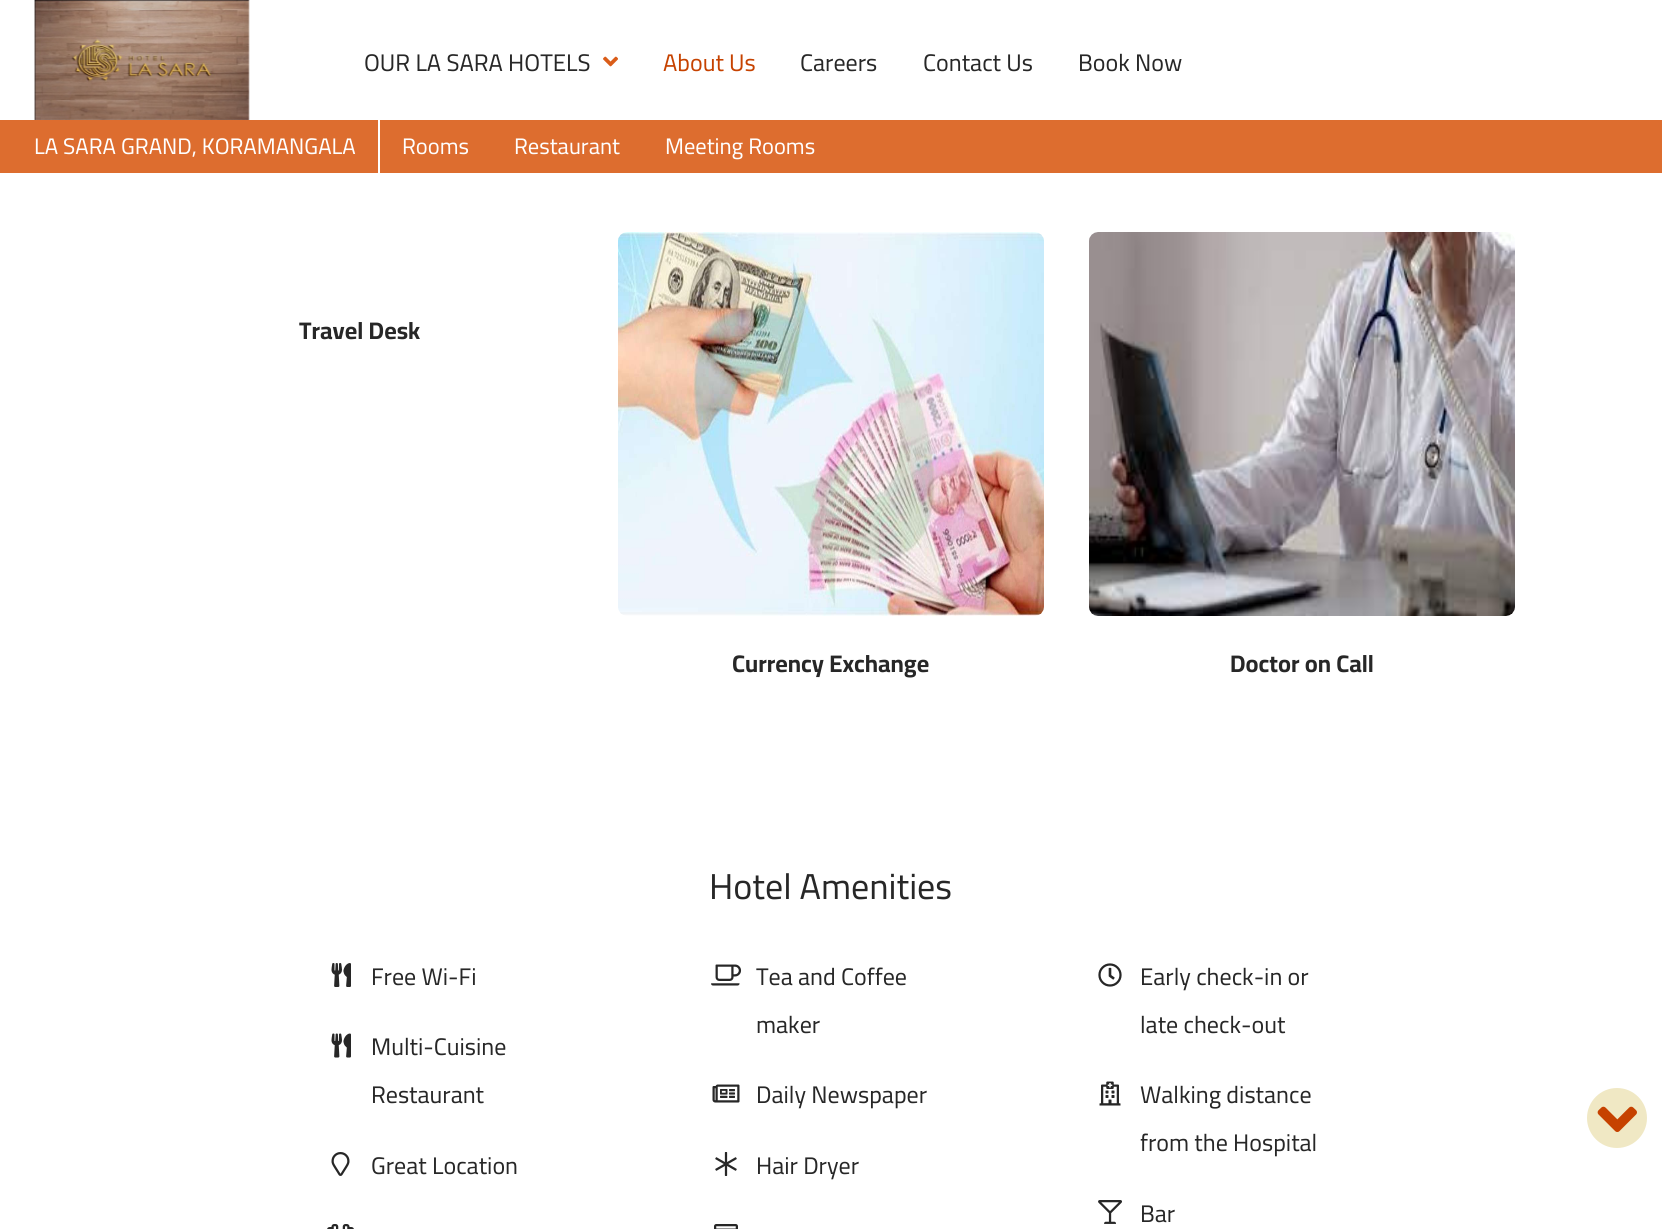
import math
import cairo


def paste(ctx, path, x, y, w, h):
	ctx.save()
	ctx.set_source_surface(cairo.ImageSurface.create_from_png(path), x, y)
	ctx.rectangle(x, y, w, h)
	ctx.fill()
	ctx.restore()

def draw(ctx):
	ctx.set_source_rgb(1, 1, 1)
	ctx.paint()
	paste(ctx, 'media/1.png', 34, 0, 216, 120)
	ctx.select_font_face('Cairo')
	ctx.set_font_size(24)
	ctx.set_source_rgb(0.153, 0.153, 0.153)
	ctx.move_to(364, 71)
	ctx.show_text('OUR LA SARA HOTELS')
	paste(ctx, 'media/2.png', 603, 56, 15, 11)
	ctx.set_source_rgb(0.776, 0.259, 0)
	ctx.move_to(663, 71)
	ctx.show_text('About Us')
	ctx.set_source_rgb(0.153, 0.153, 0.153)
	for x, y, s in [
		(800, 71, 'Careers'),
		(923, 71, 'Contact Us'),
		(1078, 71, 'Book Now'),
	]:
		ctx.move_to(x, y)
		ctx.show_text(s)
	ctx.set_source_rgba(0.855, 0.365, 0.098, 0.9)
	ctx.rectangle(0, 120, 1662, 53)
	ctx.fill()
	ctx.set_source_rgb(1, 1, 1)
	ctx.rectangle(378, 120, 2, 53)
	ctx.fill()
	ctx.set_font_size(22.5)
	for x, y, s in [
		(34, 154, 'LA SARA GRAND, KORAMANGALA'),
		(402, 154, 'Rooms'),
		(514, 154, 'Restaurant'),
		(665, 154, 'Meeting Rooms'),
	]:
		ctx.move_to(x, y)
		ctx.show_text(s)
	ctx.select_font_face('Cairo', cairo.FONT_SLANT_NORMAL, cairo.FONT_WEIGHT_BOLD)
	ctx.set_font_size(24)
	ctx.set_source_rgb(0.153, 0.153, 0.153)
	ctx.move_to(299, 339)
	ctx.show_text('Travel Desk')
	paste(ctx, 'media/3.png', 618, 232, 426, 384)
	ctx.move_to(732, 672)
	ctx.show_text('Currency Exchange')
	paste(ctx, 'media/4.png', 1089, 232, 426, 384)
	ctx.move_to(1230, 672)
	ctx.show_text('Doctor on Call')
	ctx.select_font_face('Cairo')
	ctx.set_font_size(36)
	ctx.move_to(709, 899)
	ctx.show_text('Hotel Amenities')
	paste(ctx, 'media/5.png', 331, 963, 20, 24)
	ctx.set_font_size(24)
	ctx.move_to(371, 985)
	ctx.show_text('Free Wi-Fi')
	paste(ctx, 'media/6.png', 711, 964, 31, 22)
	ctx.move_to(756, 985)
	ctx.show_text('Tea and Coffee')
	ctx.move_to(756, 1033)
	ctx.show_text('maker')
	paste(ctx, 'media/7.png', 1098, 963, 24, 24)
	ctx.move_to(1140, 985)
	ctx.show_text('Early check-in or')
	ctx.move_to(1140, 1033)
	ctx.show_text('late check-out')
	paste(ctx, 'media/8.png', 331, 1033, 20, 25)
	ctx.move_to(371, 1055)
	ctx.show_text('Multi-Cuisine')
	ctx.move_to(371, 1103)
	ctx.show_text('Restaurant')
	paste(ctx, 'media/9.png', 712, 1084, 28, 19)
	ctx.move_to(756, 1103)
	ctx.show_text('Daily Newspaper')
	paste(ctx, 'media/10.png', 1099, 1081, 22, 25)
	ctx.move_to(1140, 1103)
	ctx.show_text('Walking distance')
	ctx.move_to(1140, 1151)
	ctx.show_text('from the Hospital')
	paste(ctx, 'media/11.png', 331, 1152, 19, 24)
	ctx.move_to(371, 1174)
	ctx.show_text('Great Location')
	paste(ctx, 'media/12.png', 715, 1152, 22, 24)
	ctx.move_to(756, 1174)
	ctx.show_text('Hair Dryer')
	paste(ctx, 'media/13.png', 1098, 1200, 24, 24)
	ctx.move_to(1140, 1222)
	ctx.show_text('Bar')
	paste(ctx, 'media/14.png', 327, 1224, 27, 5)
	paste(ctx, 'media/15.png', 714, 1224, 24, 5)
	ctx.set_source_rgb(0.941, 0.91, 0.769)
	ctx.arc(1617, 1118, 30, 0, 2 * math.pi)
	ctx.fill()
	paste(ctx, 'media/16.png', 1597, 1106, 40, 26)


surface = cairo.ImageSurface(cairo.FORMAT_RGB24, 1662, 1229)
ctx = cairo.Context(surface)
options = cairo.FontOptions()
options.set_hint_metrics(cairo.HINT_METRICS_OFF)
options.set_hint_style(cairo.HINT_STYLE_NONE)
ctx.set_font_options(options)
ctx.set_miter_limit(4)
draw(ctx)
surface.write_to_png('image.png')
